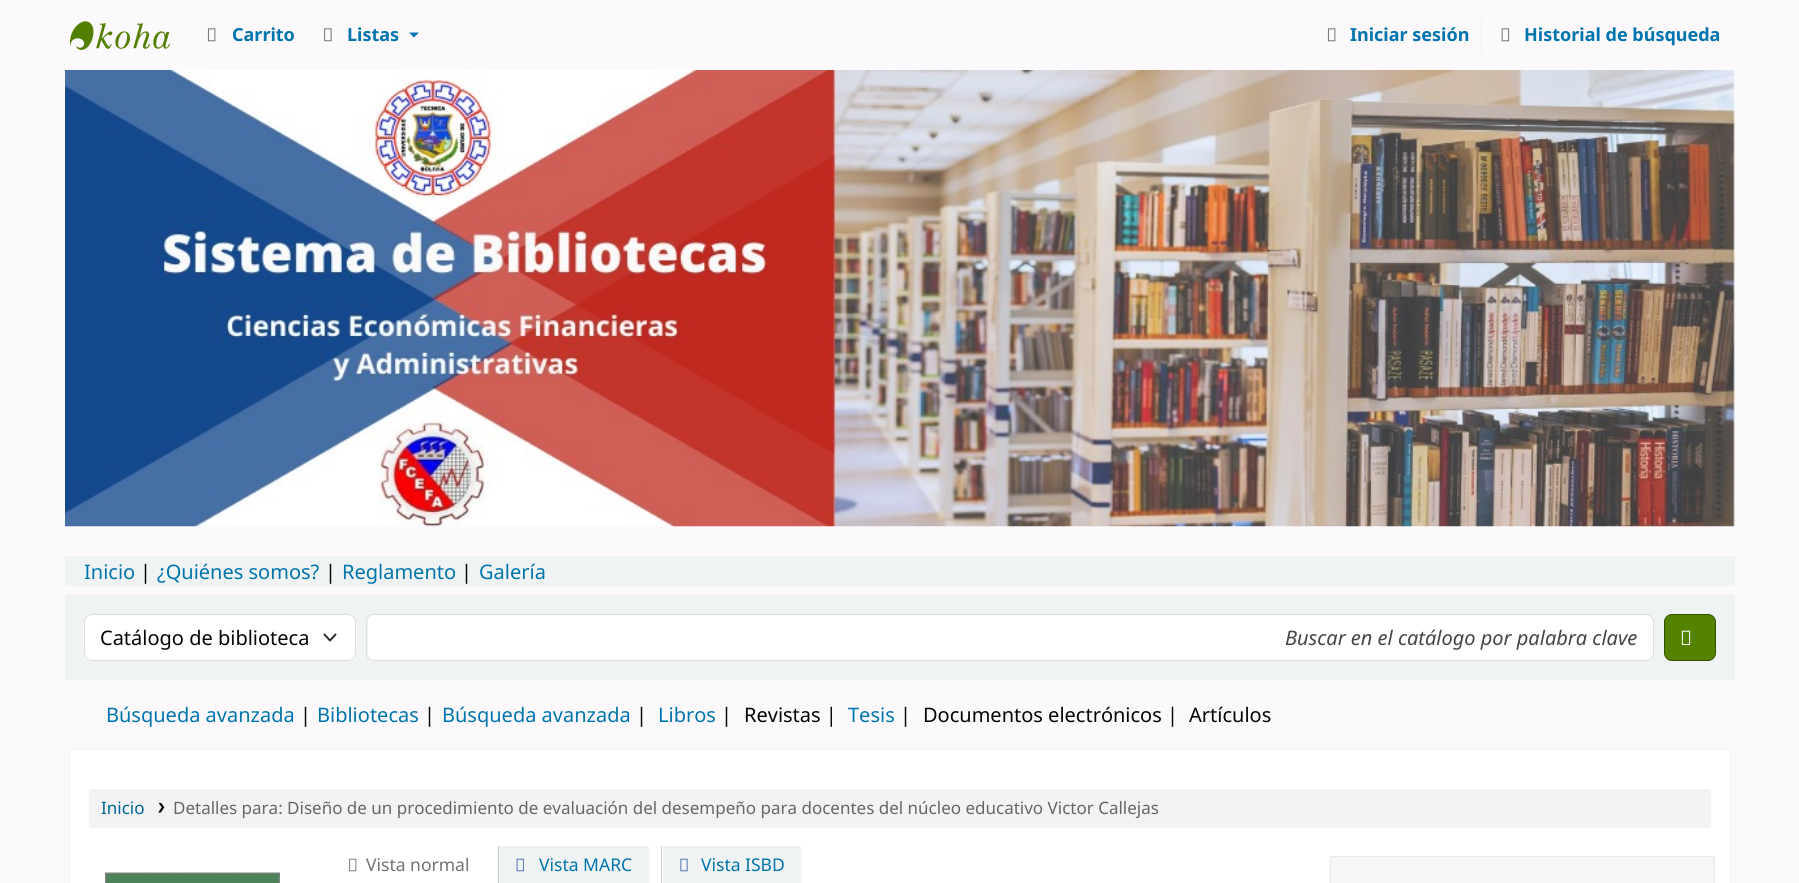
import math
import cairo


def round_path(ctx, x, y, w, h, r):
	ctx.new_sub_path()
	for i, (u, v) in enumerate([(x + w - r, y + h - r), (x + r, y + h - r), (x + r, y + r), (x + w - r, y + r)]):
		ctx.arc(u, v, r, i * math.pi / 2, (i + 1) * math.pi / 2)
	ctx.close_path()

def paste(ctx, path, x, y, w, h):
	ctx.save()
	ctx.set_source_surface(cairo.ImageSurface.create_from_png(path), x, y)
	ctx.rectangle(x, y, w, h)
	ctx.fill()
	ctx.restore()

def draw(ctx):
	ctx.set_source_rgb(0.988, 0.976, 0.988)
	ctx.paint()
	paste(ctx, 'media/1.png', 70, 21, 100, 29)
	paste(ctx, 'media/2.png', 207, 28, 9, 14)
	ctx.select_font_face('Noto Sans', cairo.FONT_SLANT_NORMAL, cairo.FONT_WEIGHT_BOLD)
	ctx.set_font_size(18)
	ctx.set_source_rgb(0, 0.455, 0.678)
	ctx.move_to(232, 41)
	ctx.show_text('Carrito')
	paste(ctx, 'media/3.png', 324, 28, 8, 14)
	ctx.move_to(347, 41)
	ctx.show_text('Listas')
	ctx.new_path()
	ctx.move_to(409, 32.5)
	ctx.line_to(419, 32.5)
	ctx.line_to(414, 37.5)
	ctx.close_path()
	ctx.fill()
	paste(ctx, 'media/2.png', 1327, 28, 9, 14)
	ctx.move_to(1350, 41)
	ctx.show_text('Iniciar sesión')
	ctx.set_source_rgb(0.933, 0.933, 0.933)
	ctx.rectangle(1481, 18, 3, 1)
	ctx.fill()
	ctx.set_source_rgb(0.988, 0.976, 0.988)
	ctx.rectangle(1483, 18, 1, 1)
	ctx.fill()
	ctx.set_source_rgb(0.933, 0.933, 0.933)
	ctx.rectangle(1481, 51, 3, 1)
	ctx.rectangle(1481, 18, 1, 35)
	ctx.fill()
	paste(ctx, 'media/4.png', 1501, 28, 9, 14)
	ctx.set_source_rgb(0, 0.455, 0.678)
	ctx.move_to(1524, 41)
	ctx.show_text('Historial de búsqueda')
	paste(ctx, 'media/5.png', 65, 70, 1670, 457)
	ctx.set_source_rgb(0.941, 0.953, 0.953)
	ctx.rectangle(65, 556, 1670, 30)
	ctx.fill()
	ctx.select_font_face('Noto Sans')
	ctx.set_font_size(20)
	ctx.set_source_rgb(0, 0.455, 0.678)
	ctx.move_to(84, 579)
	ctx.show_text('Inicio')
	ctx.set_source_rgb(0.027, 0.027, 0.027)
	ctx.move_to(140, 579)
	ctx.show_text('|')
	ctx.set_source_rgb(0, 0.455, 0.678)
	ctx.move_to(157, 579)
	ctx.show_text('¿Quiénes somos?')
	ctx.set_source_rgb(0.027, 0.027, 0.027)
	ctx.move_to(325, 579)
	ctx.show_text('|')
	ctx.set_source_rgb(0, 0.455, 0.678)
	ctx.move_to(342, 579)
	ctx.show_text('Reglamento')
	ctx.set_source_rgb(0.027, 0.027, 0.027)
	ctx.move_to(461, 579)
	ctx.show_text('|')
	ctx.set_source_rgb(0, 0.455, 0.678)
	ctx.move_to(479, 579)
	ctx.show_text('Galería')
	ctx.set_source_rgb(0.941, 0.953, 0.953)
	ctx.rectangle(65, 595, 1670, 85)
	ctx.fill()
	ctx.set_source_rgb(1, 1, 1)
	round_path(ctx, 84, 614, 272, 47, 8)
	ctx.fill()
	ctx.new_path()
	ctx.move_to(324.5, 634.5)
	ctx.line_to(330, 640.5)
	ctx.line_to(335.5, 634.5)
	ctx.set_source_rgb(0.145, 0.145, 0.145)
	ctx.set_line_width(1.9)
	ctx.set_line_cap(cairo.LINE_CAP_ROUND)
	ctx.set_line_join(cairo.LINE_JOIN_ROUND)
	ctx.stroke()
	round_path(ctx, 84.5, 614.5, 271, 46, 7.5)
	ctx.set_source_rgb(0.867, 0.867, 0.867)
	ctx.set_line_width(1)
	ctx.set_line_cap(cairo.LINE_CAP_BUTT)
	ctx.set_line_join(cairo.LINE_JOIN_MITER)
	ctx.stroke()
	ctx.set_source_rgb(0.027, 0.027, 0.027)
	ctx.move_to(100, 645)
	ctx.show_text('Catálogo de biblioteca')
	ctx.set_source_rgb(1, 1, 1)
	round_path(ctx, 368, 615, 1285, 45, 6)
	ctx.fill()
	round_path(ctx, 366.5, 614.5, 1287, 46, 7.5)
	ctx.set_source_rgb(0.867, 0.867, 0.867)
	ctx.stroke()
	ctx.select_font_face('Noto Sans', cairo.FONT_SLANT_ITALIC)
	ctx.set_source_rgb(0.271, 0.271, 0.271)
	ctx.move_to(1285, 645)
	ctx.show_text('Buscar en el catálogo por palabra clave')
	ctx.set_source_rgb(0.329, 0.514, 0)
	round_path(ctx, 1664.5, 614.5, 51, 46, 7.5)
	ctx.fill_preserve()
	ctx.set_source_rgb(0.2, 0.314, 0)
	ctx.stroke()
	paste(ctx, 'media/6.png', 1681, 630, 10, 15)
	ctx.select_font_face('Noto Sans')
	ctx.set_source_rgb(0, 0.455, 0.678)
	ctx.move_to(106, 722)
	ctx.show_text('Búsqueda avanzada')
	ctx.set_source_rgb(0.027, 0.027, 0.027)
	ctx.move_to(300, 722)
	ctx.show_text('|')
	ctx.set_source_rgb(0, 0.455, 0.678)
	ctx.move_to(317, 722)
	ctx.show_text('Bibliotecas')
	ctx.set_source_rgb(0.027, 0.027, 0.027)
	ctx.move_to(424, 722)
	ctx.show_text('|')
	ctx.set_source_rgb(0, 0.455, 0.678)
	ctx.move_to(442, 722)
	ctx.show_text('Búsqueda avanzada')
	ctx.set_source_rgb(0.027, 0.027, 0.027)
	ctx.move_to(636, 722)
	ctx.show_text('|')
	ctx.set_source_rgb(0, 0.455, 0.678)
	ctx.move_to(658, 722)
	ctx.show_text('Libros')
	ctx.set_source_rgb(0.027, 0.027, 0.027)
	ctx.move_to(721, 722)
	ctx.show_text('|')
	ctx.move_to(744, 722)
	ctx.show_text('Revistas |')
	ctx.set_source_rgb(0, 0.455, 0.678)
	ctx.move_to(848, 722)
	ctx.show_text('Tesis')
	ctx.set_source_rgb(0.027, 0.027, 0.027)
	for x, y, s in [
		(900, 722, '|'),
		(923, 722, 'Documentos electrónicos |'),
		(1189, 722, 'Artículos'),
	]:
		ctx.move_to(x, y)
		ctx.show_text(s)
	ctx.set_source_rgb(1, 1, 1)
	ctx.rectangle(69.5, 749.5, 1661, 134)
	ctx.fill_preserve()
	ctx.set_source_rgb(0.941, 0.953, 0.953)
	ctx.stroke()
	ctx.set_source_rgb(0.953, 0.953, 0.953)
	ctx.rectangle(89, 789, 1622, 39)
	ctx.fill()
	ctx.set_font_size(17)
	ctx.set_source_rgb(0, 0.388, 0.58)
	ctx.move_to(101, 814)
	ctx.show_text('Inicio')
	paste(ctx, 'media/7.png', 158, 803, 7, 10)
	ctx.set_source_rgb(0.4, 0.4, 0.4)
	ctx.move_to(173, 814)
	ctx.show_text('Detalles para: Diseño de un procedimiento de evaluación del desempeño para docentes del núcleo educativo Victor Callejas')
	paste(ctx, 'media/8.png', 349, 858, 8, 14)
	ctx.set_font_size(17.5)
	ctx.set_source_rgb(0.447, 0.447, 0.447)
	ctx.move_to(366, 871)
	ctx.show_text('Vista normal')
	ctx.set_source_rgb(0.941, 0.953, 0.953)
	ctx.rectangle(499, 846, 150, 37)
	ctx.fill()
	ctx.set_source_rgb(0.788, 0.788, 0.788)
	ctx.rectangle(498, 846, 1, 37)
	ctx.fill()
	paste(ctx, 'media/9.png', 516, 858, 8, 14)
	ctx.set_source_rgb(0, 0.455, 0.678)
	ctx.move_to(539, 871)
	ctx.show_text('Vista MARC')
	ctx.set_source_rgb(0.941, 0.953, 0.953)
	ctx.rectangle(663, 846, 138, 37)
	ctx.fill()
	ctx.set_source_rgb(0.788, 0.788, 0.788)
	ctx.rectangle(661, 846, 1, 37)
	ctx.fill()
	paste(ctx, 'media/10.png', 680, 858, 8, 14)
	ctx.set_source_rgb(0, 0.455, 0.678)
	ctx.move_to(701, 871)
	ctx.show_text('Vista ISBD')
	paste(ctx, 'media/11.png', 105, 872, 175, 11)
	ctx.set_source_rgb(0.961, 0.961, 0.961)
	ctx.rectangle(1330.5, 856.5, 384, 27)
	ctx.fill_preserve()
	ctx.set_source_rgb(0.91, 0.91, 0.91)
	ctx.stroke()


surface = cairo.ImageSurface(cairo.FORMAT_RGB24, 1799, 883)
ctx = cairo.Context(surface)
options = cairo.FontOptions()
options.set_hint_metrics(cairo.HINT_METRICS_OFF)
options.set_hint_style(cairo.HINT_STYLE_NONE)
ctx.set_font_options(options)
ctx.set_miter_limit(4)
draw(ctx)
surface.write_to_png('image.png')
